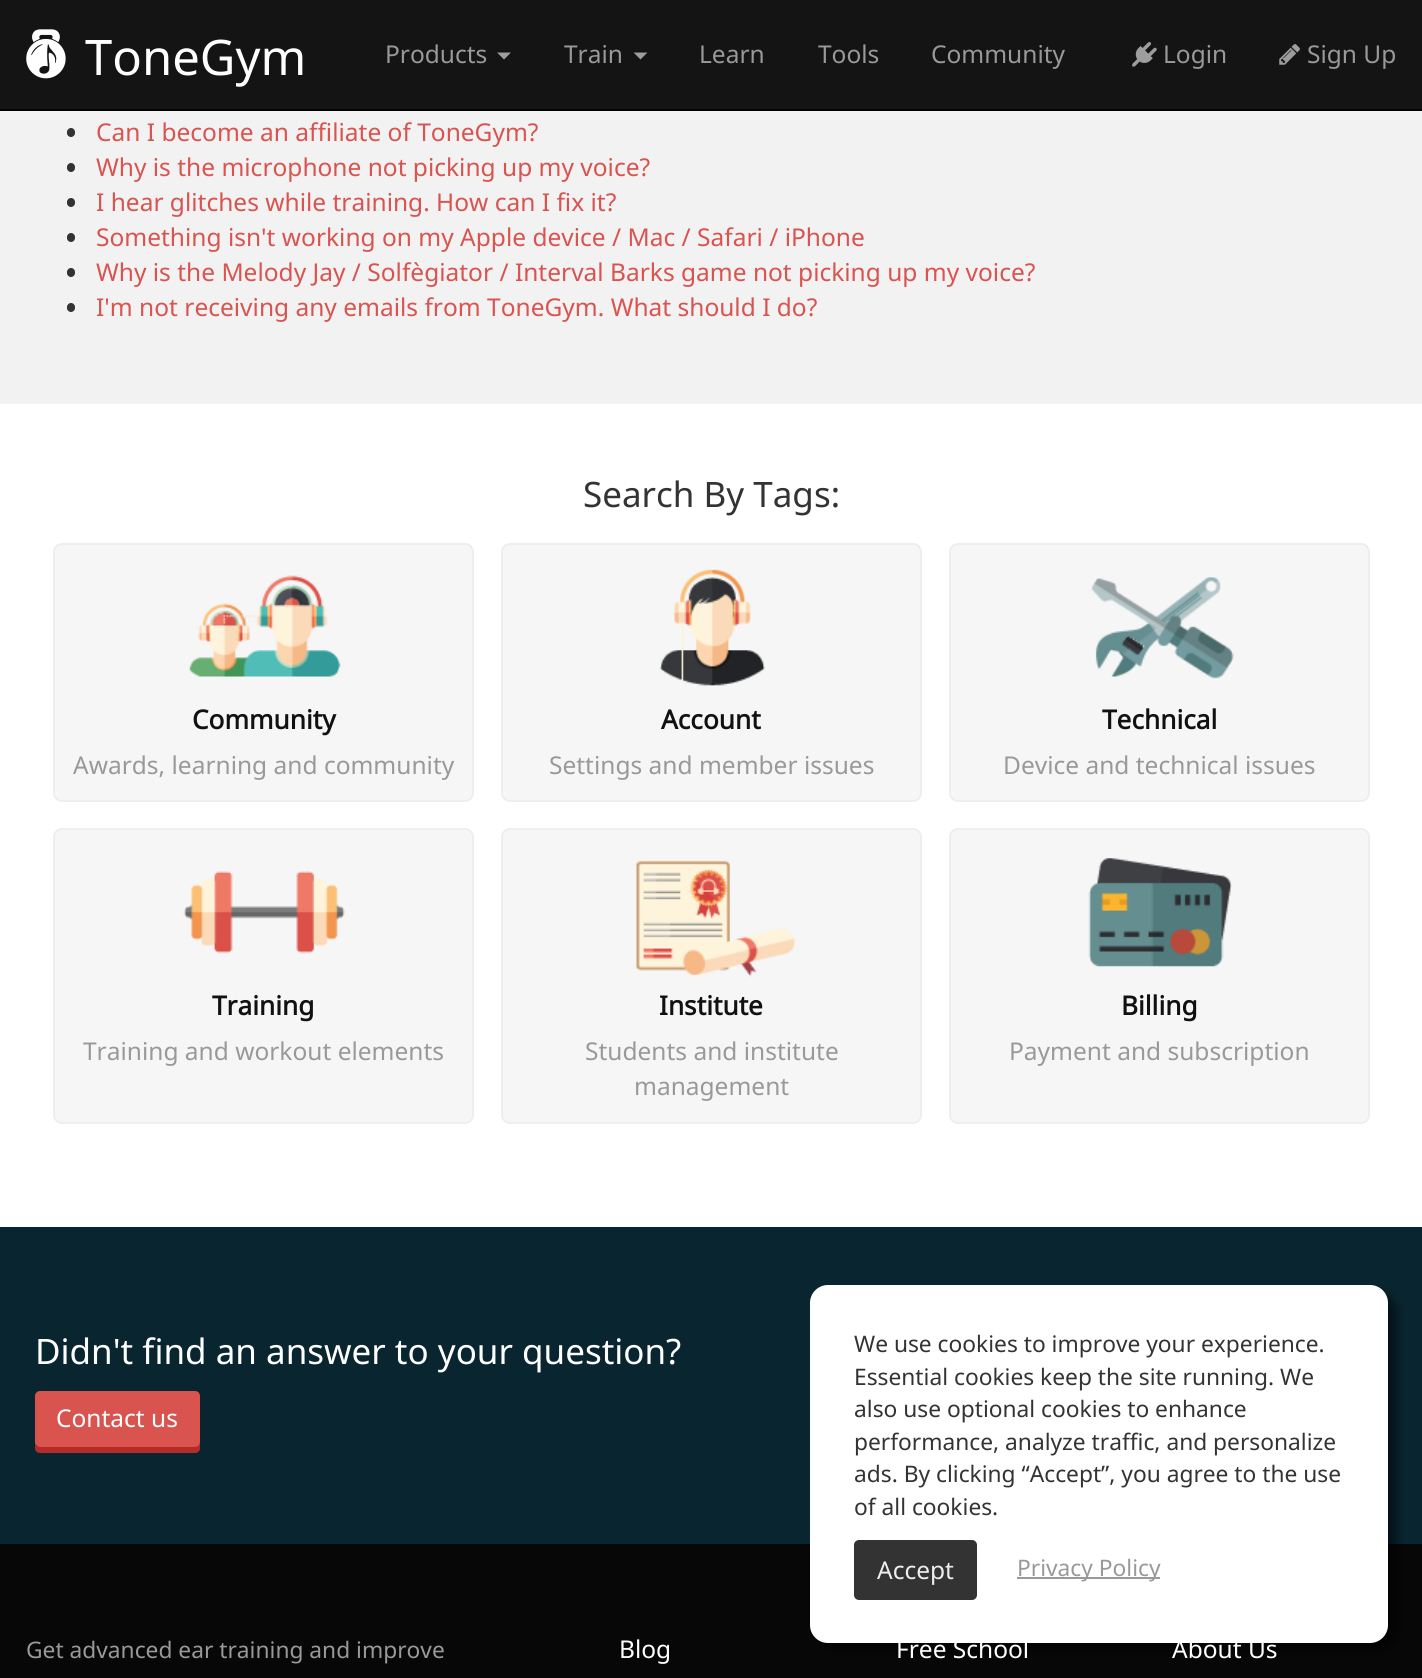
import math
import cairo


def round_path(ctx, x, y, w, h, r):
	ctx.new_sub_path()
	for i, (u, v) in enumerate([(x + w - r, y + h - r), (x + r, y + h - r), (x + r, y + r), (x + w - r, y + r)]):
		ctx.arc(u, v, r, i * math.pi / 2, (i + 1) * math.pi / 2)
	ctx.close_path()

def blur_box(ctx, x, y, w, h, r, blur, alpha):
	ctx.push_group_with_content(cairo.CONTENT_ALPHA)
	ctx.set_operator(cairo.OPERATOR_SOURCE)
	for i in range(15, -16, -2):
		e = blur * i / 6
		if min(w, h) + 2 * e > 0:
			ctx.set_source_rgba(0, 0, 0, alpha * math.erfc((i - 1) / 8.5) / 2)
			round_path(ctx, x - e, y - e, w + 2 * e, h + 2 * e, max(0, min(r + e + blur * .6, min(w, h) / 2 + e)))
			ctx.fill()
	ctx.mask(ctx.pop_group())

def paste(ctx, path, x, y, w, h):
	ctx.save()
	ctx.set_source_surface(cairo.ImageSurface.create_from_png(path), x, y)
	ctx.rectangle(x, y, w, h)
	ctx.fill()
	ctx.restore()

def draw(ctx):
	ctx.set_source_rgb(0.949, 0.949, 0.949)
	ctx.paint()
	ctx.set_source_rgb(0.082, 0.082, 0.082)
	ctx.rectangle(0, 0, 1422, 109)
	ctx.fill()
	ctx.set_source_rgb(0, 0, 0)
	ctx.rectangle(0, 109, 1422, 2)
	ctx.fill()
	paste(ctx, 'media/1.png', 26, 29, 40, 50)
	ctx.select_font_face('Noto Sans')
	ctx.set_font_size(49)
	ctx.set_source_rgb(1, 1, 1)
	ctx.move_to(85, 75)
	ctx.show_text('ToneGym')
	ctx.set_font_size(24.5)
	ctx.set_source_rgb(0.6, 0.6, 0.6)
	ctx.move_to(385, 63)
	ctx.show_text('Products')
	ctx.set_source_rgb(0.616, 0.616, 0.616)
	ctx.new_path()
	ctx.move_to(497, 52.5)
	ctx.line_to(511, 52.5)
	ctx.line_to(504, 59.5)
	ctx.close_path()
	ctx.fill()
	ctx.set_source_rgb(0.6, 0.6, 0.6)
	ctx.move_to(564, 63)
	ctx.show_text('Train')
	ctx.set_source_rgb(0.616, 0.616, 0.616)
	ctx.new_path()
	ctx.move_to(633.5, 52.5)
	ctx.line_to(647.5, 52.5)
	ctx.line_to(640.5, 59.5)
	ctx.close_path()
	ctx.fill()
	ctx.set_source_rgb(0.6, 0.6, 0.6)
	for x, y, s in [
		(699, 63, 'Learn'),
		(818, 63, 'Tools'),
		(931, 63, 'Community'),
	]:
		ctx.move_to(x, y)
		ctx.show_text(s)
	paste(ctx, 'media/2.png', 1132, 42, 25, 25)
	ctx.move_to(1163, 63)
	ctx.show_text('Login')
	paste(ctx, 'media/3.png', 1279, 44, 21, 21)
	ctx.move_to(1307, 63)
	ctx.show_text('Sign Up')
	ctx.set_source_rgb(0.2, 0.2, 0.2)
	round_path(ctx, 67, 128, 8, 9, 4)
	ctx.fill()
	ctx.set_source_rgb(0.851, 0.325, 0.31)
	ctx.move_to(96, 141)
	ctx.show_text('Can I become an affiliate of ToneGym?')
	ctx.set_source_rgb(0.2, 0.2, 0.2)
	round_path(ctx, 67, 163, 8, 9, 4)
	ctx.fill()
	ctx.set_source_rgb(0.851, 0.325, 0.31)
	ctx.move_to(96, 176)
	ctx.show_text('Why is the microphone not picking up my voice?')
	ctx.set_source_rgb(0.2, 0.2, 0.2)
	round_path(ctx, 67, 198, 8, 9, 4)
	ctx.fill()
	ctx.set_source_rgb(0.851, 0.325, 0.31)
	ctx.move_to(96, 211)
	ctx.show_text('I hear glitches while training. How can I fix it?')
	ctx.set_source_rgb(0.2, 0.2, 0.2)
	round_path(ctx, 67, 233, 8, 9, 4)
	ctx.fill()
	ctx.set_source_rgb(0.851, 0.325, 0.31)
	ctx.move_to(96, 246)
	ctx.show_text('Something isn\'t working on my Apple device / Mac / Safari / iPhone')
	ctx.set_source_rgb(0.2, 0.2, 0.2)
	round_path(ctx, 67, 268, 8, 9, 4)
	ctx.fill()
	ctx.set_source_rgb(0.851, 0.325, 0.31)
	ctx.move_to(96, 281)
	ctx.show_text('Why is the Melody Jay / Solfègiator / Interval Barks game not picking up my voice?')
	ctx.set_source_rgb(0.2, 0.2, 0.2)
	round_path(ctx, 67, 303, 8, 9, 4)
	ctx.fill()
	ctx.set_source_rgb(0.851, 0.325, 0.31)
	ctx.move_to(96, 316)
	ctx.show_text('I\'m not receiving any emails from ToneGym. What should I do?')
	ctx.set_source_rgb(1, 1, 1)
	ctx.rectangle(0, 404, 1422, 823)
	ctx.fill()
	ctx.set_font_size(35)
	ctx.set_source_rgb(0.2, 0.2, 0.2)
	ctx.move_to(583, 507)
	ctx.show_text('Search By Tags:')
	ctx.set_source_rgb(0.961, 0.961, 0.961)
	round_path(ctx, 54, 544, 419, 257, 8)
	ctx.fill_preserve()
	ctx.set_source_rgb(0.933, 0.933, 0.933)
	ctx.stroke()
	paste(ctx, 'media/4.png', 189, 575, 152, 102)
	ctx.select_font_face('Noto Sans', cairo.FONT_SLANT_NORMAL, cairo.FONT_WEIGHT_BOLD)
	ctx.set_font_size(26.25)
	ctx.set_source_rgb(0.067, 0.067, 0.067)
	ctx.move_to(192, 729)
	ctx.show_text('Community')
	ctx.select_font_face('Noto Sans')
	ctx.set_font_size(24.5)
	ctx.set_source_rgb(0.6, 0.6, 0.6)
	ctx.move_to(73, 774)
	ctx.show_text('Awards, learning and community')
	ctx.set_source_rgb(0.961, 0.961, 0.961)
	round_path(ctx, 502, 544, 419, 257, 8)
	ctx.fill_preserve()
	ctx.set_source_rgb(0.933, 0.933, 0.933)
	ctx.stroke()
	paste(ctx, 'media/5.png', 659, 569, 106, 117)
	ctx.select_font_face('Noto Sans', cairo.FONT_SLANT_NORMAL, cairo.FONT_WEIGHT_BOLD)
	ctx.set_font_size(26.25)
	ctx.set_source_rgb(0.067, 0.067, 0.067)
	ctx.move_to(661, 729)
	ctx.show_text('Account')
	ctx.select_font_face('Noto Sans')
	ctx.set_font_size(24.5)
	ctx.set_source_rgb(0.6, 0.6, 0.6)
	ctx.move_to(549, 774)
	ctx.show_text('Settings and member issues')
	ctx.set_source_rgb(0.961, 0.961, 0.961)
	round_path(ctx, 950, 544, 419, 257, 8)
	ctx.fill_preserve()
	ctx.set_source_rgb(0.933, 0.933, 0.933)
	ctx.stroke()
	paste(ctx, 'media/6.png', 1091, 577, 143, 102)
	ctx.select_font_face('Noto Sans', cairo.FONT_SLANT_NORMAL, cairo.FONT_WEIGHT_BOLD)
	ctx.set_font_size(26.25)
	ctx.set_source_rgb(0.067, 0.067, 0.067)
	ctx.move_to(1102, 729)
	ctx.show_text('Technical')
	ctx.select_font_face('Noto Sans')
	ctx.set_font_size(24.5)
	ctx.set_source_rgb(0.6, 0.6, 0.6)
	ctx.move_to(1003, 774)
	ctx.show_text('Device and technical issues')
	ctx.set_source_rgb(0.961, 0.961, 0.961)
	round_path(ctx, 54, 829, 419, 294, 8)
	ctx.fill_preserve()
	ctx.set_source_rgb(0.933, 0.933, 0.933)
	ctx.stroke()
	paste(ctx, 'media/7.png', 183, 871, 162, 83)
	ctx.select_font_face('Noto Sans', cairo.FONT_SLANT_NORMAL, cairo.FONT_WEIGHT_BOLD)
	ctx.set_font_size(26.25)
	ctx.set_source_rgb(0.067, 0.067, 0.067)
	ctx.move_to(212, 1015)
	ctx.show_text('Training')
	ctx.select_font_face('Noto Sans')
	ctx.set_font_size(24.5)
	ctx.set_source_rgb(0.6, 0.6, 0.6)
	ctx.move_to(83, 1060)
	ctx.show_text('Training and workout elements')
	ctx.set_source_rgb(0.961, 0.961, 0.961)
	round_path(ctx, 502, 829, 419, 294, 8)
	ctx.fill_preserve()
	ctx.set_source_rgb(0.933, 0.933, 0.933)
	ctx.stroke()
	paste(ctx, 'media/8.png', 636, 860, 160, 117)
	ctx.select_font_face('Noto Sans', cairo.FONT_SLANT_NORMAL, cairo.FONT_WEIGHT_BOLD)
	ctx.set_font_size(26.25)
	ctx.set_source_rgb(0.067, 0.067, 0.067)
	ctx.move_to(659, 1015)
	ctx.show_text('Institute')
	ctx.select_font_face('Noto Sans')
	ctx.set_font_size(24.5)
	ctx.set_source_rgb(0.6, 0.6, 0.6)
	ctx.move_to(585, 1060)
	ctx.show_text('Students and institute')
	ctx.move_to(634, 1095)
	ctx.show_text('management')
	ctx.set_source_rgb(0.961, 0.961, 0.961)
	round_path(ctx, 950, 829, 419, 294, 8)
	ctx.fill_preserve()
	ctx.set_source_rgb(0.933, 0.933, 0.933)
	ctx.stroke()
	paste(ctx, 'media/9.png', 1088, 858, 144, 109)
	ctx.select_font_face('Noto Sans', cairo.FONT_SLANT_NORMAL, cairo.FONT_WEIGHT_BOLD)
	ctx.set_font_size(26.25)
	ctx.set_source_rgb(0.067, 0.067, 0.067)
	ctx.move_to(1121, 1015)
	ctx.show_text('Billing')
	ctx.select_font_face('Noto Sans')
	ctx.set_font_size(24.5)
	ctx.set_source_rgb(0.6, 0.6, 0.6)
	ctx.move_to(1009, 1060)
	ctx.show_text('Payment and subscription')
	ctx.set_source_rgb(0.039, 0.145, 0.188)
	ctx.rectangle(0, 1227, 1422, 317)
	ctx.fill()
	ctx.set_font_size(35)
	ctx.set_source_rgb(1, 1, 1)
	ctx.move_to(35, 1364)
	ctx.show_text('Didn\'t find an answer to your question?')
	ctx.set_source_rgb(0.71, 0.169, 0.153)
	ctx.new_path()
	ctx.move_to(35, 1442)
	ctx.line_to(35, 1448)
	ctx.curve_to(35, 1451, 37, 1453, 40, 1453)
	ctx.line_to(195, 1453)
	ctx.curve_to(198, 1453, 200, 1451, 200, 1448)
	ctx.line_to(200, 1402)
	ctx.line_to(200, 1400)
	ctx.line_to(200, 1442)
	ctx.curve_to(200, 1445, 197, 1447, 194, 1447)
	ctx.line_to(40, 1447)
	ctx.curve_to(37, 1447, 35, 1445, 35, 1442)
	ctx.close_path()
	ctx.fill()
	ctx.set_source_rgb(0.851, 0.325, 0.31)
	round_path(ctx, 35, 1391, 165, 56, 5)
	ctx.fill()
	ctx.set_font_size(24.5)
	ctx.set_source_rgb(1, 1, 1)
	ctx.move_to(56, 1427)
	ctx.show_text('Contact us')
	ctx.set_source_rgb(0.031, 0.031, 0.031)
	ctx.rectangle(0, 1544, 1422, 134)
	ctx.fill()
	ctx.set_source_rgb(0, 0, 0)
	blur_box(ctx, 819, 1293, 578, 359, 18, 4.5, 0.5)
	ctx.set_source_rgb(1, 1, 1)
	round_path(ctx, 810, 1285, 578, 358, 18)
	ctx.fill()
	ctx.set_font_size(22.75)
	ctx.set_source_rgb(0.2, 0.2, 0.2)
	for x, y, s in [
		(854, 1352, 'We use cookies to improve your experience.'),
		(854, 1385, 'Essential cookies keep the site running. We'),
		(854, 1417, 'also use optional cookies to enhance'),
		(854, 1450, 'performance, analyze traffic, and personalize'),
		(854, 1482, 'ads. By clicking “Accept”, you agree to the use'),
		(854, 1515, 'of all cookies.'),
	]:
		ctx.move_to(x, y)
		ctx.show_text(s)
	round_path(ctx, 854, 1540, 123, 60, 5)
	ctx.fill()
	ctx.set_font_size(24.5)
	ctx.set_source_rgb(0.933, 0.933, 0.933)
	ctx.move_to(877, 1579)
	ctx.show_text('Accept')
	ctx.set_source_rgb(0.6, 0.6, 0.6)
	ctx.rectangle(1017, 1577, 143, 2)
	ctx.fill()
	ctx.set_font_size(22.75)
	ctx.move_to(1017, 1576)
	ctx.show_text('Privacy Policy')
	ctx.move_to(26, 1658)
	ctx.show_text('Get advanced ear training and improve')
	ctx.set_font_size(24.5)
	ctx.set_source_rgb(1, 1, 1)
	for x, y, s in [
		(619, 1658, 'Blog'),
		(896, 1658, 'Free School'),
		(1172, 1658, 'About Us'),
	]:
		ctx.move_to(x, y)
		ctx.show_text(s)


surface = cairo.ImageSurface(cairo.FORMAT_RGB24, 1422, 1678)
ctx = cairo.Context(surface)
options = cairo.FontOptions()
options.set_hint_metrics(cairo.HINT_METRICS_OFF)
options.set_hint_style(cairo.HINT_STYLE_NONE)
ctx.set_font_options(options)
ctx.set_miter_limit(4)
draw(ctx)
surface.write_to_png('image.png')
